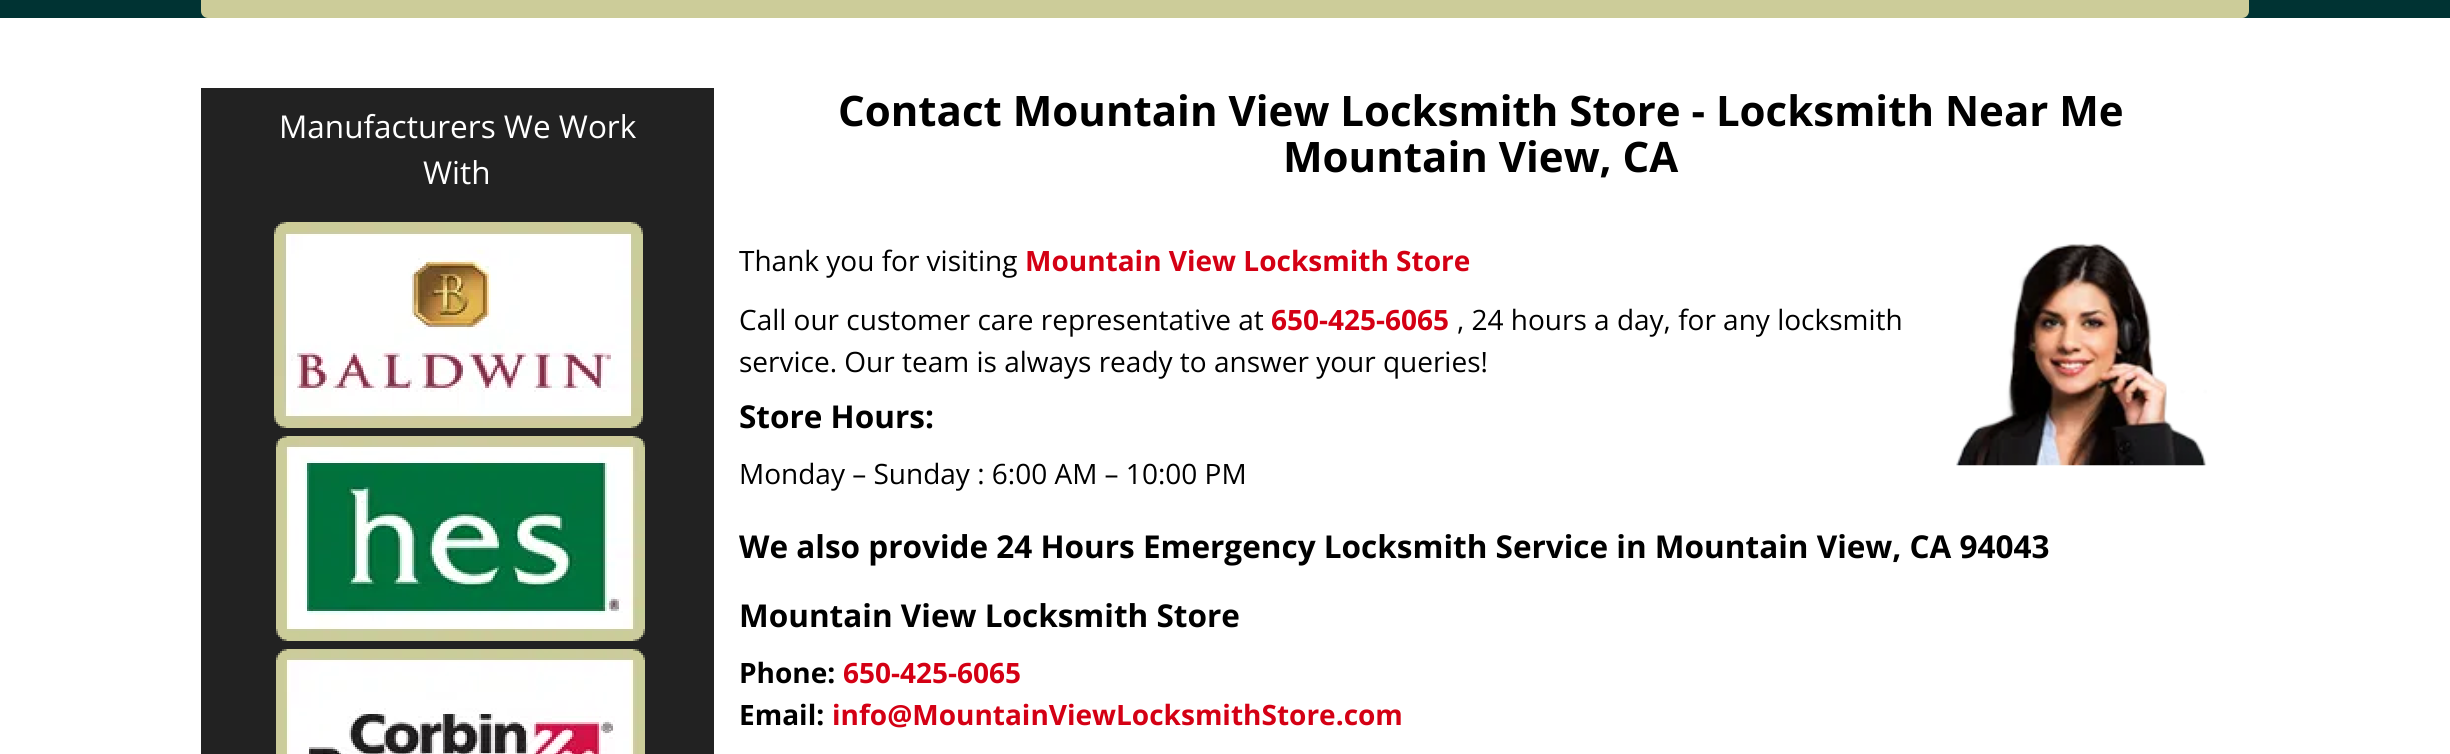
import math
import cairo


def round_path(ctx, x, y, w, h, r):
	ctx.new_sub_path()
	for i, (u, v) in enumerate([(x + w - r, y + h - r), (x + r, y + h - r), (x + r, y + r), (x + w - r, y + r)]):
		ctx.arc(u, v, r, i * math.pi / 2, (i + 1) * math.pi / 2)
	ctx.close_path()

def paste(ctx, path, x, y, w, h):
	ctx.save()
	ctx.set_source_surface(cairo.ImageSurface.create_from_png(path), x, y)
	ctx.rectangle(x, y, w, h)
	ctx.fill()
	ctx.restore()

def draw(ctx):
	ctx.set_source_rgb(0, 0.2, 0.2)
	ctx.paint()
	ctx.set_source_rgb(0.8, 0.8, 0.6)
	round_path(ctx, 201, -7, 2048, 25, 7)
	ctx.fill()
	ctx.set_source_rgb(1, 1, 1)
	ctx.rectangle(0, 18, 2450, 736)
	ctx.fill()
	ctx.set_source_rgb(0.133, 0.133, 0.133)
	ctx.rectangle(201, 88, 513, 666)
	ctx.fill()
	ctx.select_font_face('Open Sans')
	ctx.set_font_size(31.5)
	ctx.set_source_rgb(1, 1, 1)
	ctx.move_to(279, 138)
	ctx.show_text('Manufacturers We Work')
	ctx.move_to(423, 184)
	ctx.show_text('With')
	paste(ctx, 'media/1.png', 274, 222, 371, 532)
	ctx.select_font_face('Open Sans', cairo.FONT_SLANT_NORMAL, cairo.FONT_WEIGHT_BOLD)
	ctx.set_font_size(42)
	ctx.set_source_rgb(0, 0, 0)
	ctx.move_to(838, 126)
	ctx.show_text('Contact Mountain View Locksmith Store - Locksmith Near Me')
	ctx.move_to(1283, 172)
	ctx.show_text('Mountain View, CA')
	ctx.select_font_face('Open Sans')
	ctx.set_font_size(28)
	ctx.move_to(739, 271)
	ctx.show_text('Thank you for visiting')
	ctx.select_font_face('Open Sans', cairo.FONT_SLANT_NORMAL, cairo.FONT_WEIGHT_BOLD)
	ctx.set_source_rgb(0.831, 0, 0.082)
	ctx.move_to(1025, 271)
	ctx.show_text('Mountain View Locksmith Store')
	paste(ctx, 'media/2.png', 1956, 243, 251, 223)
	ctx.select_font_face('Open Sans')
	ctx.set_source_rgb(0, 0, 0)
	ctx.move_to(739, 330)
	ctx.show_text('Call our customer care representative at')
	ctx.select_font_face('Open Sans', cairo.FONT_SLANT_NORMAL, cairo.FONT_WEIGHT_BOLD)
	ctx.set_source_rgb(0.831, 0, 0.082)
	ctx.move_to(1271, 330)
	ctx.show_text('650-425-6065')
	ctx.select_font_face('Open Sans')
	ctx.set_source_rgb(0, 0, 0)
	ctx.move_to(1457, 330)
	ctx.show_text(', 24 hours a day, for any locksmith')
	ctx.move_to(739, 372)
	ctx.show_text('service. Our team is always ready to answer your queries!')
	ctx.select_font_face('Open Sans', cairo.FONT_SLANT_NORMAL, cairo.FONT_WEIGHT_BOLD)
	ctx.set_font_size(31.5)
	ctx.move_to(739, 428)
	ctx.show_text('Store Hours:')
	ctx.select_font_face('Open Sans')
	ctx.set_font_size(28)
	ctx.move_to(739, 484)
	ctx.show_text('Monday – Sunday : 6:00 AM – 10:00 PM')
	ctx.select_font_face('Open Sans', cairo.FONT_SLANT_NORMAL, cairo.FONT_WEIGHT_BOLD)
	ctx.set_font_size(31.5)
	ctx.move_to(739, 558)
	ctx.show_text('We also provide 24 Hours Emergency Locksmith Service in Mountain View, CA 94043')
	ctx.move_to(739, 627)
	ctx.show_text('Mountain View Locksmith Store')
	ctx.set_font_size(28)
	ctx.move_to(739, 683)
	ctx.show_text('Phone:')
	ctx.set_source_rgb(0.831, 0, 0.082)
	ctx.move_to(843, 683)
	ctx.show_text('650-425-6065')
	ctx.set_source_rgb(0, 0, 0)
	ctx.move_to(739, 725)
	ctx.show_text('Email:')
	ctx.set_source_rgb(0.831, 0, 0.082)
	ctx.move_to(832, 725)
	ctx.show_text('info@MountainViewLocksmithStore.com')


surface = cairo.ImageSurface(cairo.FORMAT_RGB24, 2450, 754)
ctx = cairo.Context(surface)
options = cairo.FontOptions()
options.set_hint_metrics(cairo.HINT_METRICS_OFF)
options.set_hint_style(cairo.HINT_STYLE_NONE)
ctx.set_font_options(options)
ctx.set_miter_limit(4)
draw(ctx)
surface.write_to_png('image.png')
